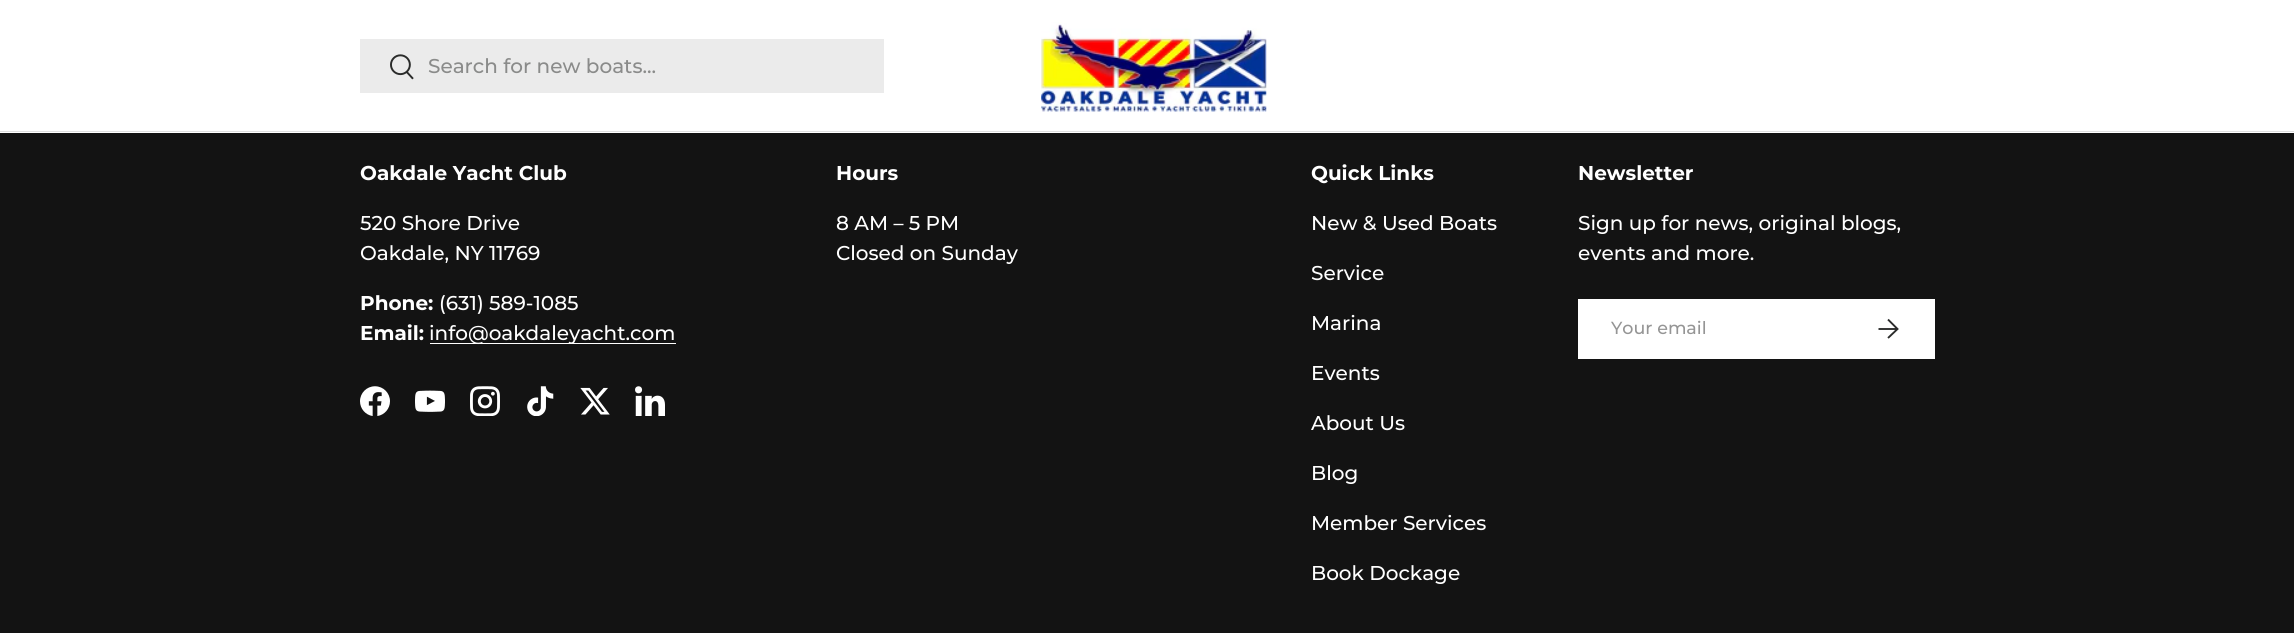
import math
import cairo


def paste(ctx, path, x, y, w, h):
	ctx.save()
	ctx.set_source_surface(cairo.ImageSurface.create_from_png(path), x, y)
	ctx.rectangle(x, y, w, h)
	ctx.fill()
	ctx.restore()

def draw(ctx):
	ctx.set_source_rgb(0.078, 0.078, 0.078)
	ctx.paint()
	ctx.set_source_rgb(1, 1, 1)
	ctx.rectangle(0, 0, 2294, 133)
	ctx.fill()
	ctx.set_source_rgb(0.875, 0.875, 0.875)
	ctx.rectangle(0, 131, 2294, 1)
	ctx.fill()
	ctx.set_source_rgb(0.918, 0.918, 0.918)
	ctx.rectangle(360, 39, 524, 54)
	ctx.fill()
	paste(ctx, 'media/1.png', 390, 54, 24, 26)
	ctx.select_font_face('Montserrat Medium')
	ctx.set_font_size(20)
	ctx.set_source_rgb(0.541, 0.545, 0.541)
	ctx.move_to(428, 73)
	ctx.show_text('Search for new boats...')
	paste(ctx, 'media/2.png', 1041, 22, 226, 90)
	ctx.select_font_face('Montserrat', cairo.FONT_SLANT_NORMAL, cairo.FONT_WEIGHT_BOLD)
	ctx.set_source_rgb(1, 1, 1)
	ctx.move_to(360, 180)
	ctx.show_text('Oakdale Yacht Club')
	ctx.select_font_face('Montserrat Medium')
	ctx.move_to(360, 230)
	ctx.show_text('520 Shore Drive')
	ctx.move_to(360, 260)
	ctx.show_text('Oakdale, NY 11769')
	ctx.select_font_face('Montserrat', cairo.FONT_SLANT_NORMAL, cairo.FONT_WEIGHT_BOLD)
	ctx.move_to(360, 310)
	ctx.show_text('Phone:')
	ctx.select_font_face('Montserrat Medium')
	ctx.move_to(439, 310)
	ctx.show_text('(631) 589-1085')
	ctx.select_font_face('Montserrat', cairo.FONT_SLANT_NORMAL, cairo.FONT_WEIGHT_BOLD)
	ctx.move_to(360, 340)
	ctx.show_text('Email:')
	ctx.rectangle(430, 343, 246, 1)
	ctx.fill()
	ctx.select_font_face('Montserrat Medium')
	ctx.move_to(429, 340)
	ctx.show_text('info@oakdaleyacht.com')
	paste(ctx, 'media/3.png', 360, 386, 30, 30)
	paste(ctx, 'media/4.png', 415, 390, 30, 22)
	paste(ctx, 'media/5.png', 470, 386, 30, 30)
	paste(ctx, 'media/6.png', 527, 386, 27, 30)
	paste(ctx, 'media/7.png', 580, 387, 30, 28)
	paste(ctx, 'media/8.png', 635, 386, 30, 30)
	ctx.select_font_face('Montserrat', cairo.FONT_SLANT_NORMAL, cairo.FONT_WEIGHT_BOLD)
	ctx.move_to(836, 180)
	ctx.show_text('Hours')
	ctx.select_font_face('Montserrat Medium')
	ctx.move_to(836, 230)
	ctx.show_text('8 AM – 5 PM')
	ctx.move_to(836, 260)
	ctx.show_text('Closed on Sunday')
	ctx.select_font_face('Montserrat', cairo.FONT_SLANT_NORMAL, cairo.FONT_WEIGHT_BOLD)
	ctx.move_to(1311, 180)
	ctx.show_text('Quick Links')
	ctx.select_font_face('Montserrat Medium')
	for x, y, s in [
		(1311, 230, 'New & Used Boats'),
		(1311, 280, 'Service'),
		(1311, 330, 'Marina'),
		(1311, 380, 'Events'),
		(1311, 430, 'About Us'),
		(1311, 480, 'Blog'),
		(1311, 530, 'Member Services'),
		(1311, 580, 'Book Dockage'),
	]:
		ctx.move_to(x, y)
		ctx.show_text(s)
	ctx.select_font_face('Montserrat', cairo.FONT_SLANT_NORMAL, cairo.FONT_WEIGHT_BOLD)
	ctx.move_to(1578, 180)
	ctx.show_text('Newsletter')
	ctx.select_font_face('Montserrat Medium')
	ctx.move_to(1578, 230)
	ctx.show_text('Sign up for news, original blogs,')
	ctx.move_to(1578, 260)
	ctx.show_text('events and more.')
	ctx.rectangle(1578, 299, 357, 60)
	ctx.fill()
	ctx.set_font_size(17.5)
	ctx.set_source_rgb(0.584, 0.584, 0.584)
	ctx.move_to(1611, 334)
	ctx.show_text('Your email')
	ctx.new_path()
	ctx.move_to(1878.5, 329)
	ctx.line_to(1896.5, 329)
	ctx.move_to(1888, 319.5)
	ctx.line_to(1897.5, 329)
	ctx.line_to(1888, 338)
	ctx.set_source_rgb(0.165, 0.169, 0.165)
	ctx.set_line_width(1.9)
	ctx.stroke()


surface = cairo.ImageSurface(cairo.FORMAT_RGB24, 2294, 633)
ctx = cairo.Context(surface)
options = cairo.FontOptions()
options.set_hint_metrics(cairo.HINT_METRICS_OFF)
options.set_hint_style(cairo.HINT_STYLE_NONE)
ctx.set_font_options(options)
ctx.set_miter_limit(4)
draw(ctx)
surface.write_to_png('image.png')
